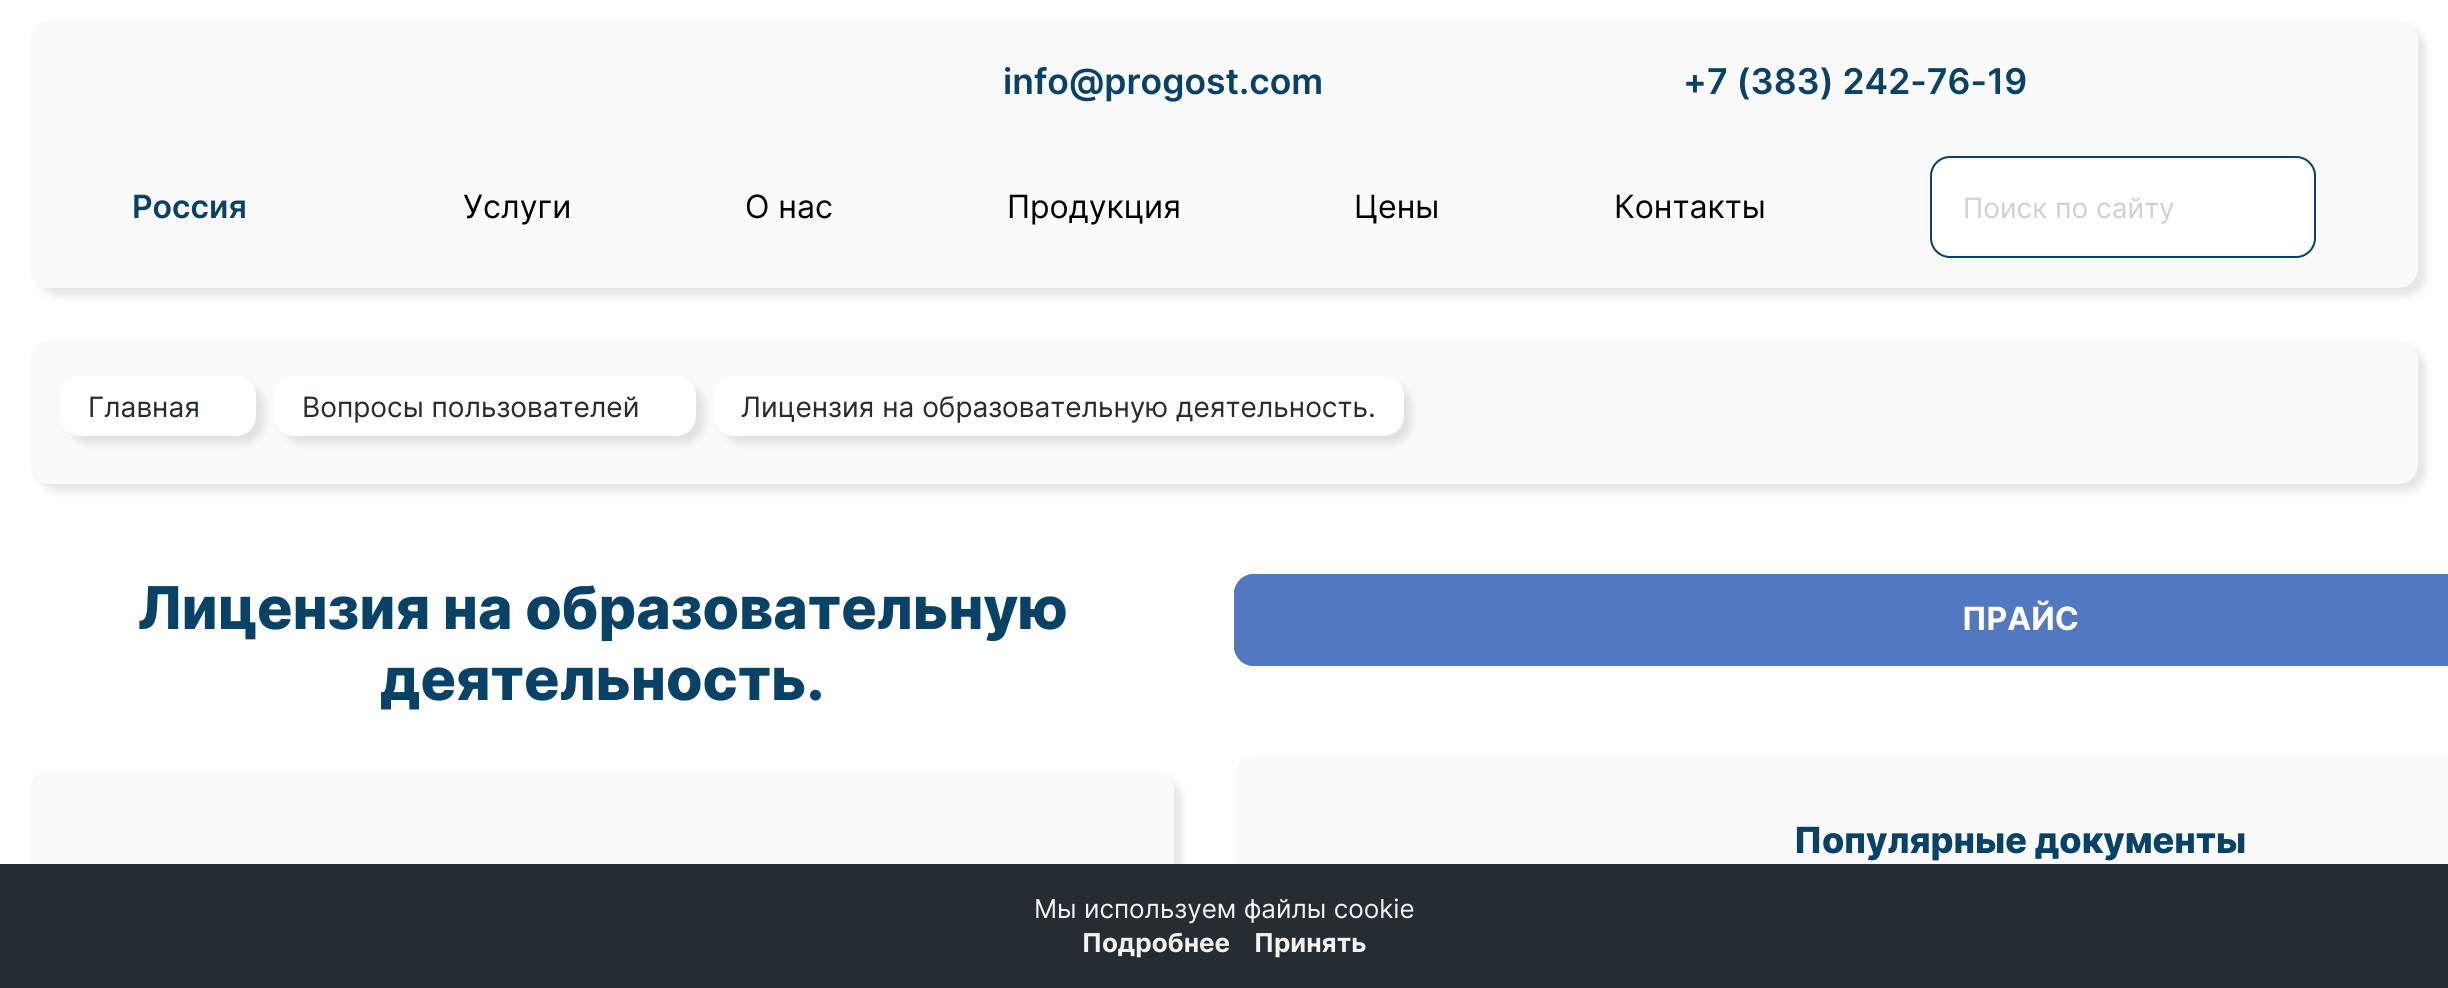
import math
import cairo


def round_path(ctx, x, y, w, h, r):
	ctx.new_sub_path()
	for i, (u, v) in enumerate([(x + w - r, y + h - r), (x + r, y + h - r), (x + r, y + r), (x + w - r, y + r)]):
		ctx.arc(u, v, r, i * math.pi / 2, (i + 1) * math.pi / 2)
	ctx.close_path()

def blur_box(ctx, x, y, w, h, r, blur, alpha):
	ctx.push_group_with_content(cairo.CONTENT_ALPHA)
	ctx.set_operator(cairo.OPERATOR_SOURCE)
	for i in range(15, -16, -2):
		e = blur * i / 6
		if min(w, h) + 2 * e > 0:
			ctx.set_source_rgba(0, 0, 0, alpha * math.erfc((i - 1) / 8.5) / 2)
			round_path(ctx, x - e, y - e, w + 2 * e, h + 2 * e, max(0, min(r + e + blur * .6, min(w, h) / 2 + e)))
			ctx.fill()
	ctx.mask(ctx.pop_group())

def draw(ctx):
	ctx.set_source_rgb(1, 1, 1)
	ctx.paint()
	ctx.set_source_rgb(0, 0, 0)
	blur_box(ctx, 38, 28, 2388, 268, 20, 4, 0.1)
	ctx.set_source_rgb(0.98, 0.98, 0.98)
	round_path(ctx, 30, 20, 2388, 268, 20)
	ctx.fill()
	ctx.select_font_face('Inter SemiBold')
	ctx.set_font_size(35.5)
	ctx.set_source_rgb(0.035, 0.259, 0.404)
	ctx.move_to(1003, 94)
	ctx.show_text('info@progost.com')
	ctx.move_to(1683, 94)
	ctx.show_text('+7 (383) 242-76-19')
	ctx.set_font_size(32)
	ctx.move_to(132, 218)
	ctx.show_text('Россия')
	ctx.select_font_face('Inter')
	ctx.set_source_rgb(0, 0, 0)
	for x, y, s in [
		(463, 218, 'Услуги'),
		(745, 218, 'О нас'),
		(1007, 218, 'Продукция'),
		(1354, 218, 'Цены'),
		(1614, 218, 'Контакты'),
	]:
		ctx.move_to(x, y)
		ctx.show_text(s)
	ctx.set_source_rgb(1, 1, 1)
	round_path(ctx, 1931, 157, 384, 100, 19)
	ctx.fill_preserve()
	ctx.set_source_rgb(0.035, 0.259, 0.404)
	ctx.stroke()
	ctx.set_font_size(28)
	ctx.set_source_rgb(0.816, 0.816, 0.816)
	ctx.move_to(1963, 218)
	ctx.show_text('Поиск по сайту')
	ctx.set_source_rgb(0, 0, 0)
	blur_box(ctx, 38, 348, 2388, 144, 20, 4, 0.1)
	ctx.set_source_rgb(0.98, 0.98, 0.98)
	round_path(ctx, 30, 340, 2388, 144, 20)
	ctx.fill()
	ctx.set_source_rgb(0, 0, 0)
	blur_box(ctx, 68, 384, 196, 60, 20, 4, 0.1)
	ctx.set_source_rgb(1, 1, 1)
	round_path(ctx, 60, 376, 196, 60, 20)
	ctx.fill()
	ctx.set_source_rgb(0.145, 0.173, 0.196)
	ctx.move_to(88, 417)
	ctx.show_text('Главная')
	ctx.set_source_rgb(0, 0, 0)
	blur_box(ctx, 282, 384, 422, 60, 20, 4, 0.1)
	ctx.set_source_rgb(1, 1, 1)
	round_path(ctx, 274, 376, 422, 60, 20)
	ctx.fill()
	ctx.set_source_rgb(0.145, 0.173, 0.196)
	ctx.move_to(302, 417)
	ctx.show_text('Вопросы пользователей')
	ctx.set_source_rgb(0, 0, 0)
	blur_box(ctx, 722, 384, 690, 60, 20, 4, 0.1)
	ctx.set_source_rgb(1, 1, 1)
	round_path(ctx, 714, 376, 690, 60, 20)
	ctx.fill()
	ctx.set_source_rgb(0.145, 0.173, 0.196)
	ctx.move_to(741, 417)
	ctx.show_text('Лицензия на образовательную деятельность.')
	ctx.select_font_face('Inter ExtraBold')
	ctx.set_font_size(59)
	ctx.set_source_rgb(0.035, 0.259, 0.404)
	ctx.move_to(138, 629)
	ctx.show_text('Лицензия на образовательную')
	ctx.move_to(380, 700)
	ctx.show_text('деятельность.')
	ctx.set_source_rgb(0, 0, 0)
	blur_box(ctx, 38, 778, 1144, 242, 20, 4, 0.1)
	ctx.set_source_rgb(0.98, 0.98, 0.98)
	round_path(ctx, 30, 770, 1144, 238, 20)
	ctx.fill()
	ctx.set_source_rgb(0.322, 0.471, 0.753)
	ctx.new_path()
	ctx.move_to(1254, 574)
	ctx.line_to(2448, 574)
	ctx.line_to(2448, 666)
	ctx.line_to(1254, 666)
	ctx.curve_to(1243, 666, 1234, 657, 1234, 646)
	ctx.line_to(1234, 594)
	ctx.curve_to(1234, 583, 1243, 574, 1254, 574)
	ctx.close_path()
	ctx.fill()
	round_path(ctx, 1235, 575, 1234, 90, 19)
	ctx.stroke()
	ctx.select_font_face('Inter', cairo.FONT_SLANT_NORMAL, cairo.FONT_WEIGHT_BOLD)
	ctx.set_font_size(32)
	ctx.set_source_rgb(1, 1, 1)
	ctx.move_to(1962, 630)
	ctx.show_text('ПРАЙС')
	ctx.set_source_rgb(0.98, 0.98, 0.98)
	ctx.new_path()
	ctx.move_to(1254, 756)
	ctx.line_to(2448, 756)
	ctx.line_to(2448, 982)
	ctx.line_to(1254, 982)
	ctx.curve_to(1243, 982, 1234, 973, 1234, 962)
	ctx.line_to(1234, 776)
	ctx.curve_to(1234, 765, 1243, 756, 1254, 756)
	ctx.close_path()
	ctx.fill()
	ctx.select_font_face('Inter ExtraBold')
	ctx.set_font_size(36)
	ctx.set_source_rgb(0.035, 0.259, 0.404)
	ctx.move_to(1794, 853)
	ctx.show_text('Популярные документы')
	ctx.set_source_rgb(0.145, 0.173, 0.196)
	ctx.rectangle(0, 864, 2448, 124)
	ctx.fill()
	ctx.select_font_face('Inter')
	ctx.set_font_size(26)
	ctx.set_source_rgb(0.949, 0.949, 0.949)
	ctx.move_to(1034, 918)
	ctx.show_text('Мы используем файлы cookie')
	ctx.select_font_face('Inter', cairo.FONT_SLANT_NORMAL, cairo.FONT_WEIGHT_BOLD)
	ctx.move_to(1082, 952)
	ctx.show_text('Подробнее')
	ctx.move_to(1254, 952)
	ctx.show_text('Принять')


surface = cairo.ImageSurface(cairo.FORMAT_RGB24, 2448, 988)
ctx = cairo.Context(surface)
options = cairo.FontOptions()
options.set_hint_metrics(cairo.HINT_METRICS_OFF)
options.set_hint_style(cairo.HINT_STYLE_NONE)
ctx.set_font_options(options)
ctx.set_miter_limit(4)
draw(ctx)
surface.write_to_png('image.png')
